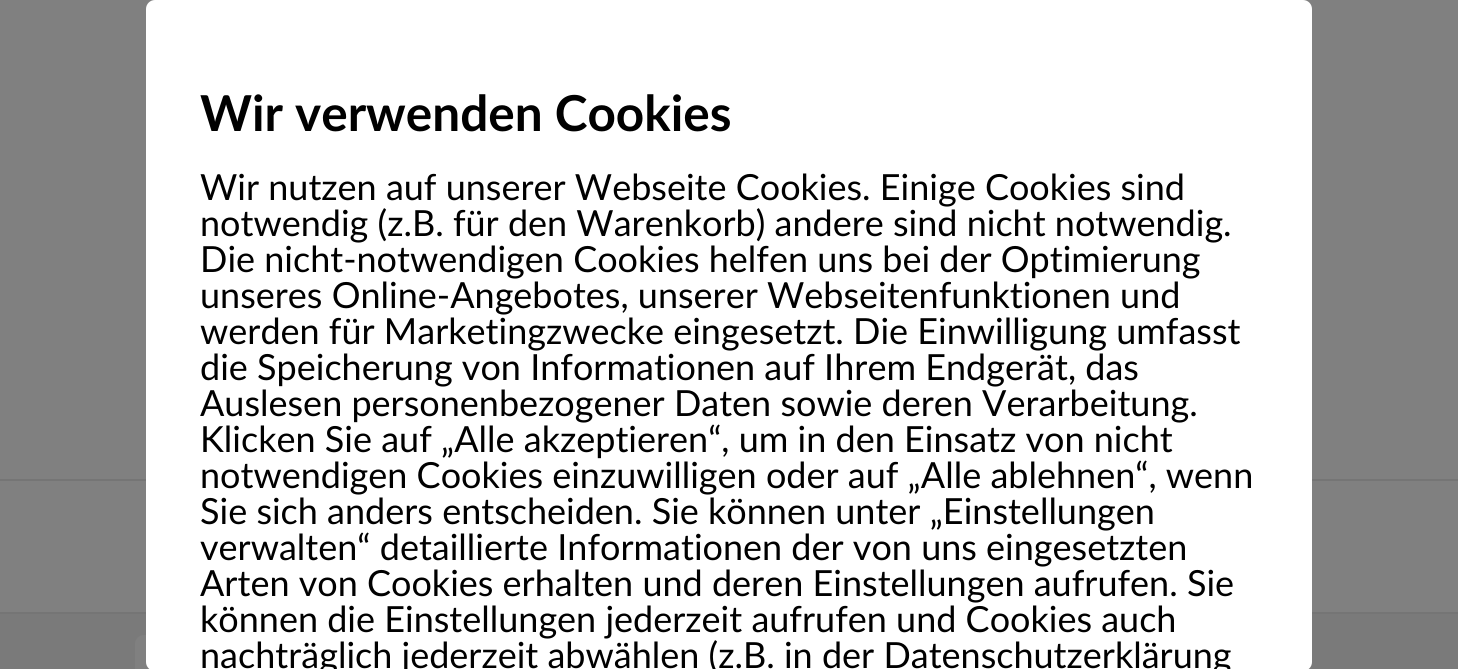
import math
import cairo


def round_path(ctx, x, y, w, h, r):
	ctx.new_sub_path()
	for i, (u, v) in enumerate([(x + w - r, y + h - r), (x + r, y + h - r), (x + r, y + r), (x + w - r, y + r)]):
		ctx.arc(u, v, r, i * math.pi / 2, (i + 1) * math.pi / 2)
	ctx.close_path()

def draw(ctx):
	ctx.set_source_rgb(0.478, 0.478, 0.478)
	ctx.paint()
	ctx.set_source_rgb(0.502, 0.502, 0.502)
	ctx.rectangle(0, 0, 1458, 612)
	ctx.fill()
	ctx.set_source_rgb(0.459, 0.459, 0.459)
	ctx.rectangle(0, 479, 146, 2)
	ctx.rectangle(0, 612, 146, 2)
	ctx.rectangle(1312, 479, 146, 2)
	ctx.rectangle(1312, 612, 146, 2)
	ctx.fill()
	ctx.set_source_rgb(0.502, 0.502, 0.502)
	ctx.new_path()
	ctx.move_to(144, 635)
	ctx.line_to(295, 635)
	ctx.curve_to(300, 635, 304, 639, 304, 644)
	ctx.line_to(304, 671)
	ctx.line_to(135, 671)
	ctx.line_to(135, 644)
	ctx.curve_to(135, 639, 139, 635, 144, 635)
	ctx.close_path()
	ctx.fill()
	ctx.set_source_rgb(1, 1, 1)
	round_path(ctx, 146, 0, 1166, 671, 9)
	ctx.fill()
	ctx.select_font_face('Lato', cairo.FONT_SLANT_NORMAL, cairo.FONT_WEIGHT_BOLD)
	ctx.set_font_size(49.5)
	ctx.set_source_rgb(0, 0, 0)
	ctx.move_to(200, 131)
	ctx.show_text('Wir verwenden Cookies')
	ctx.select_font_face('Lato')
	ctx.set_font_size(36)
	for x, y, s in [
		(200, 200, 'Wir nutzen auf unserer Webseite Cookies. Einige Cookies sind'),
		(200, 236, 'notwendig (z.B. für den Warenkorb) andere sind nicht notwendig.'),
		(200, 272, 'Die nicht-notwendigen Cookies helfen uns bei der Optimierung'),
		(200, 308, 'unseres Online-Angebotes, unserer Webseitenfunktionen und'),
		(200, 344, 'werden für Marketingzwecke eingesetzt. Die Einwilligung umfasst'),
		(200, 380, 'die Speicherung von Informationen auf Ihrem Endgerät, das'),
		(200, 416, 'Auslesen personenbezogener Daten sowie deren Verarbeitung.'),
		(200, 452, 'Klicken Sie auf „Alle akzeptieren“, um in den Einsatz von nicht'),
		(200, 488, 'notwendigen Cookies einzuwilligen oder auf „Alle ablehnen“, wenn'),
		(200, 524, 'Sie sich anders entscheiden. Sie können unter „Einstellungen'),
		(200, 560, 'verwalten“ detaillierte Informationen der von uns eingesetzten'),
		(200, 596, 'Arten von Cookies erhalten und deren Einstellungen aufrufen. Sie'),
		(200, 632, 'können die Einstellungen jederzeit aufrufen und Cookies auch'),
		(200, 668, 'nachträglich jederzeit abwählen (z.B. in der Datenschutzerklärung'),
	]:
		ctx.move_to(x, y)
		ctx.show_text(s)


surface = cairo.ImageSurface(cairo.FORMAT_RGB24, 1458, 669)
ctx = cairo.Context(surface)
options = cairo.FontOptions()
options.set_hint_metrics(cairo.HINT_METRICS_OFF)
options.set_hint_style(cairo.HINT_STYLE_NONE)
ctx.set_font_options(options)
ctx.set_miter_limit(4)
draw(ctx)
surface.write_to_png('image.png')
